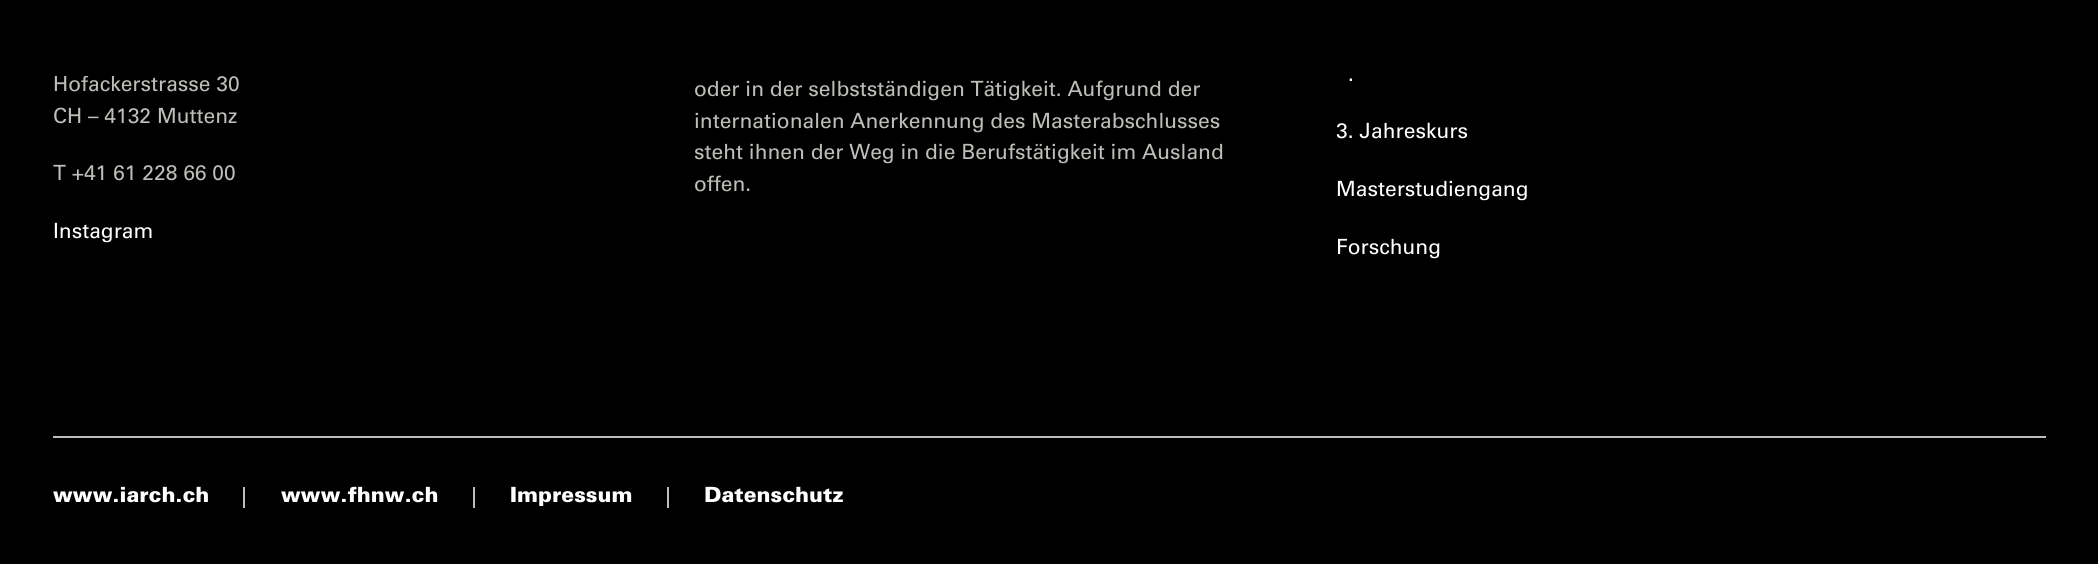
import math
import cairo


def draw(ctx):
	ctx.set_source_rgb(0, 0, 0)
	ctx.paint()
	ctx.select_font_face('Univers')
	ctx.set_font_size(21)
	ctx.set_source_rgb(0.745, 0.741, 0.725)
	for x, y, s in [
		(53, 91, 'Hofackerstrasse 30'),
		(53, 123, 'CH – 4132 Muttenz'),
		(53, 180, 'T +41 61 228 66 00'),
	]:
		ctx.move_to(x, y)
		ctx.show_text(s)
	ctx.set_source_rgb(1, 1, 1)
	ctx.move_to(53, 238)
	ctx.show_text('Instagram')
	ctx.set_source_rgb(0.745, 0.741, 0.725)
	for x, y, s in [
		(694, 96, 'oder in der selbstständigen Tätigkeit. Aufgrund der'),
		(694, 128, 'internationalen Anerkennung des Masterabschlusses'),
		(694, 159, 'steht ihnen der Weg in die Berufstätigkeit im Ausland'),
		(694, 191, 'offen.'),
	]:
		ctx.move_to(x, y)
		ctx.show_text(s)
	ctx.set_source_rgb(1, 1, 1)
	for x, y, s in [
		(1348, 81, '.'),
		(1336, 138, '3. Jahreskurs'),
		(1336, 196, 'Masterstudiengang'),
		(1336, 254, 'Forschung'),
	]:
		ctx.move_to(x, y)
		ctx.show_text(s)
	ctx.set_source_rgb(0.745, 0.741, 0.725)
	ctx.rectangle(53, 436, 1993, 2)
	ctx.fill()
	ctx.select_font_face('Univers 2')
	ctx.set_source_rgb(1, 1, 1)
	ctx.move_to(53, 502)
	ctx.show_text('www.iarch.ch')
	ctx.set_source_rgb(0.745, 0.741, 0.725)
	ctx.rectangle(243, 487, 2, 21)
	ctx.fill()
	ctx.set_source_rgb(1, 1, 1)
	ctx.move_to(281, 502)
	ctx.show_text('www.fhnw.ch')
	ctx.set_source_rgb(0.745, 0.741, 0.725)
	ctx.rectangle(473, 487, 2, 21)
	ctx.fill()
	ctx.set_source_rgb(1, 1, 1)
	ctx.move_to(510, 502)
	ctx.show_text('Impressum')
	ctx.set_source_rgb(0.745, 0.741, 0.725)
	ctx.rectangle(667, 487, 2, 21)
	ctx.fill()
	ctx.set_source_rgb(1, 1, 1)
	ctx.move_to(704, 502)
	ctx.show_text('Datenschutz')
	ctx.set_source_rgb(0, 0, 0)
	ctx.rectangle(54, 75, 60, 1)
	ctx.fill()


surface = cairo.ImageSurface(cairo.FORMAT_RGB24, 2098, 564)
ctx = cairo.Context(surface)
options = cairo.FontOptions()
options.set_hint_metrics(cairo.HINT_METRICS_OFF)
options.set_hint_style(cairo.HINT_STYLE_NONE)
ctx.set_font_options(options)
ctx.set_miter_limit(4)
draw(ctx)
surface.write_to_png('image.png')
